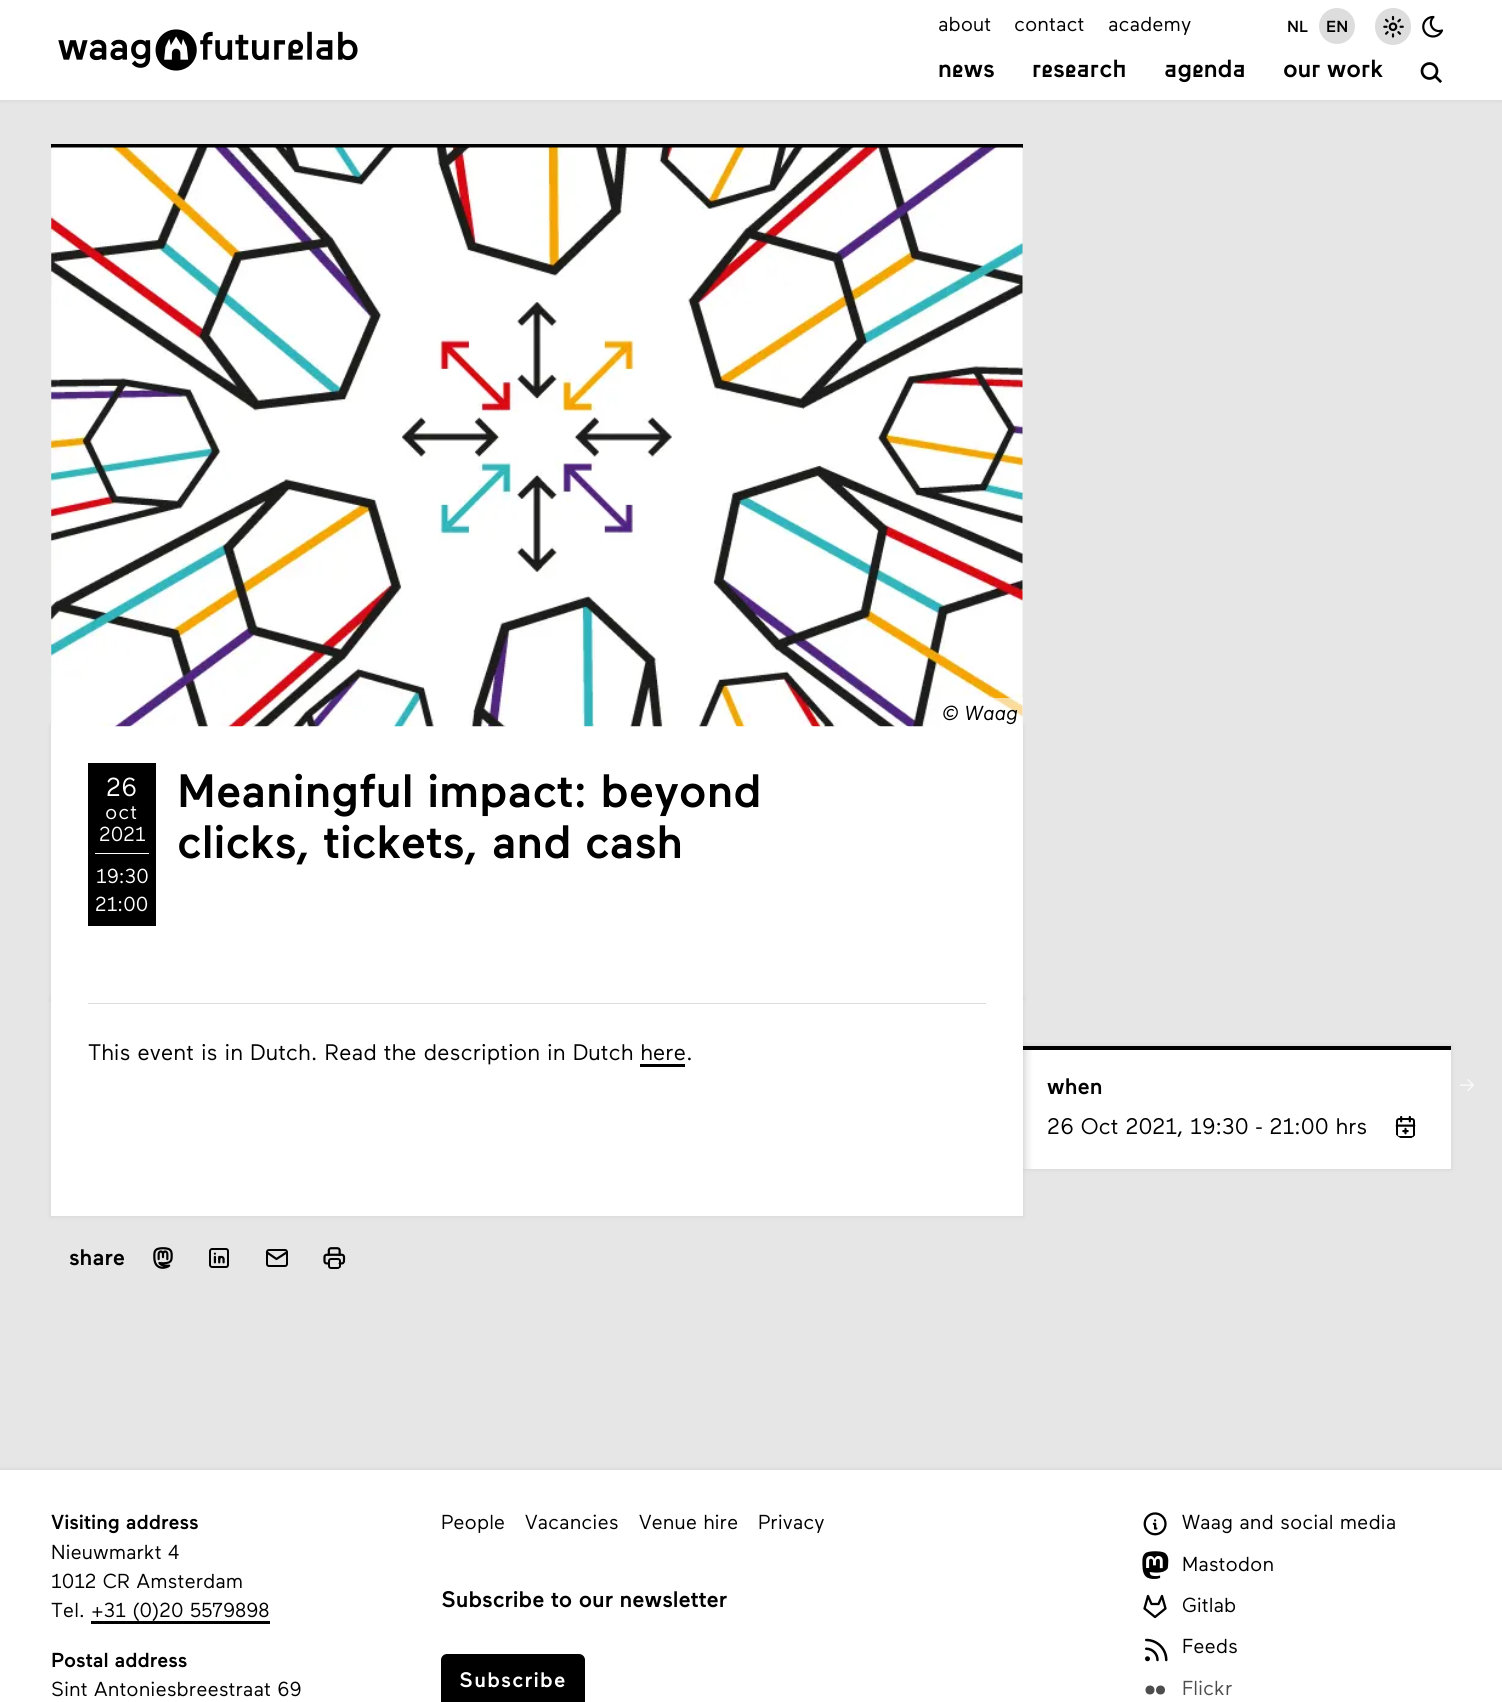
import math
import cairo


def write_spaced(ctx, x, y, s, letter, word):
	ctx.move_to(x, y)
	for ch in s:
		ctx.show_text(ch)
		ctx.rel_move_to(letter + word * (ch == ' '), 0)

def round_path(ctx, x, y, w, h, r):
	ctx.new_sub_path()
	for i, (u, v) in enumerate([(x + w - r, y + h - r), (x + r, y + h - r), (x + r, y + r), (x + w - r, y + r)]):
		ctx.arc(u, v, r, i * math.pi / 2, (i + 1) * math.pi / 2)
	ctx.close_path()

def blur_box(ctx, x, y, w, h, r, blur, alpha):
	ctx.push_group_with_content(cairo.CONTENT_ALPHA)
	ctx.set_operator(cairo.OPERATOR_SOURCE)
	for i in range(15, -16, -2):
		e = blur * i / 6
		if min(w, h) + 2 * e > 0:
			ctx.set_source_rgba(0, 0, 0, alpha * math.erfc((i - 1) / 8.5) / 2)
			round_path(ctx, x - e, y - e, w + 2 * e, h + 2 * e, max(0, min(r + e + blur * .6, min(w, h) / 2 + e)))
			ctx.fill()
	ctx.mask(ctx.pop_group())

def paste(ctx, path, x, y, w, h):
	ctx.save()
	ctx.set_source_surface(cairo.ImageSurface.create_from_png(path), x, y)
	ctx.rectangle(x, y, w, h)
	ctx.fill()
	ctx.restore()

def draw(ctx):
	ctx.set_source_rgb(0.902, 0.902, 0.902)
	ctx.paint()
	ctx.set_source_rgb(0, 0, 0)
	blur_box(ctx, 0, 0, 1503, 100, 0, 2.5, 0.1)
	ctx.set_source_rgb(1, 1, 1)
	ctx.rectangle(0, 0, 1502, 100)
	ctx.fill()
	paste(ctx, 'media/1.png', 58, 29, 300, 42)
	ctx.select_font_face('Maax')
	ctx.set_font_size(20.25)
	ctx.set_source_rgb(0, 0, 0)
	for x, y, s in [
		(938, 31, 'about'),
		(1014, 31, 'contact'),
		(1108, 31, 'academy'),
	]:
		ctx.move_to(x, y)
		ctx.show_text(s)
	ctx.select_font_face('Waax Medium')
	ctx.set_font_size(16)
	ctx.move_to(1287, 32)
	ctx.show_text('NL')
	ctx.set_source_rgb(0.867, 0.867, 0.867)
	ctx.new_path()
	ctx.arc(1337, 26, 18, 0, 2 * math.pi)
	ctx.fill()
	ctx.set_source_rgb(0, 0, 0)
	ctx.move_to(1326, 32)
	ctx.show_text('EN')
	ctx.set_source_rgb(0.867, 0.867, 0.867)
	round_path(ctx, 1375, 8, 36, 37, 18)
	ctx.fill()
	paste(ctx, 'media/2.png', 1383, 15, 21, 23)
	paste(ctx, 'media/3.png', 1422, 15, 22, 23)
	ctx.set_font_size(24.75)
	ctx.set_source_rgb(0, 0, 0)
	for x, y, s in [
		(938, 77, 'news'),
		(1032, 77, 'research'),
		(1164, 77, 'agenda'),
		(1283, 77, 'our work'),
	]:
		ctx.move_to(x, y)
		ctx.show_text(s)
	ctx.new_path()
	ctx.arc(1429.5, 71, 7.5, 0, 2 * math.pi)
	ctx.set_line_width(2.7)
	ctx.stroke()
	ctx.save()
	round_path(ctx, 1419, 60, 26, 26, 13)
	ctx.clip()
	ctx.new_path()
	ctx.move_to(1441.5, 82.5)
	ctx.line_to(1435, 76)
	ctx.set_line_cap(cairo.LINE_CAP_ROUND)
	ctx.set_line_join(cairo.LINE_JOIN_ROUND)
	ctx.stroke()
	ctx.restore()
	ctx.rectangle(51, 144, 972, 4)
	ctx.fill()
	ctx.set_source_rgb(0, 0, 0)
	blur_box(ctx, 51, 726, 972, 273, 0, 2.5, 0.1)
	blur_box(ctx, 1023, 1046, 428, 123, 0, 2.5, 0.1)
	ctx.set_source_rgb(0, 0, 0)
	ctx.rectangle(1023, 1046, 428, 4)
	ctx.fill()
	gradient = cairo.LinearGradient(1023, 1109, 1033, 1109)
	gradient.add_color_stop_rgba(0, 0.902, 0.902, 0.902, 1)
	gradient.add_color_stop_rgba(1, 1, 1, 1, 1)
	ctx.set_source(gradient)
	ctx.rectangle(1023, 1050, 10, 119)
	ctx.fill()
	ctx.set_source_rgb(0, 0, 0)
	blur_box(ctx, 51, 999, 972, 217, 0, 2.5, 0.1)
	ctx.set_source_rgb(1, 1, 1)
	ctx.rectangle(51, 726, 972, 283)
	ctx.fill()
	paste(ctx, 'media/4.png', 51, 147, 972, 580)
	ctx.set_source_rgba(1, 1, 1, 0.6)
	ctx.rectangle(983, 698, 40, 28)
	ctx.fill()
	ctx.select_font_face('Maax', cairo.FONT_SLANT_ITALIC)
	ctx.set_font_size(20.25)
	ctx.set_source_rgb(0, 0, 0)
	ctx.move_to(942, 720)
	ctx.show_text('© Waag')
	ctx.rectangle(88, 763, 68, 163)
	ctx.fill()
	ctx.set_source_rgb(1, 1, 1)
	ctx.rectangle(95, 853, 54, 1)
	ctx.fill()
	ctx.select_font_face('Maax')
	ctx.set_font_size(26)
	ctx.move_to(106, 796)
	ctx.show_text('26')
	ctx.set_font_size(20.25)
	write_spaced(ctx, 105, 819, 'oct', 1, 0)
	for x, y, s in [
		(99, 841, '2021'),
		(96, 883, '19:30'),
		(95, 911, '21:00'),
	]:
		ctx.move_to(x, y)
		ctx.show_text(s)
	ctx.select_font_face('Maax Medium')
	ctx.set_font_size(46.75)
	ctx.set_source_rgb(0, 0, 0)
	ctx.move_to(177, 807)
	ctx.show_text('Meaningful impact: beyond')
	ctx.move_to(177, 858)
	ctx.show_text('clicks, tickets, and cash')
	ctx.set_source_rgb(0.867, 0.867, 0.867)
	ctx.rectangle(88, 1003, 898, 1)
	ctx.fill()
	ctx.set_source_rgb(1, 1, 1)
	ctx.rectangle(51, 1009, 972, 207)
	ctx.fill()
	ctx.select_font_face('Maax')
	ctx.set_font_size(22.5)
	ctx.set_source_rgb(0, 0, 0)
	ctx.move_to(88, 1060)
	ctx.show_text('This event is in Dutch. Read the description in Dutch here')
	ctx.move_to(686, 1060)
	ctx.show_text('.')
	ctx.rectangle(640, 1064, 45, 3)
	ctx.fill()
	ctx.set_font_size(20.25)
	ctx.set_source_rgb(0.973, 0.973, 0.973)
	write_spaced(ctx, 1459, 1091, '→', 0, -1)
	ctx.set_source_rgb(1, 1, 1)
	ctx.rectangle(1033, 1050, 418, 119)
	ctx.fill()
	ctx.select_font_face('Maax Medium')
	ctx.set_font_size(22.5)
	ctx.set_source_rgb(0, 0, 0)
	ctx.move_to(1047, 1094)
	ctx.show_text('when')
	ctx.select_font_face('Maax')
	ctx.move_to(1047, 1134)
	ctx.show_text('26 Oct 2021, 19:30 - 21:00 hrs')
	paste(ctx, 'media/5.png', 1395, 1115, 21, 23)
	ctx.select_font_face('Maax Medium')
	ctx.move_to(69, 1265)
	ctx.show_text('share')
	paste(ctx, 'media/6.png', 153, 1247, 20, 22)
	paste(ctx, 'media/7.png', 209, 1248, 20, 20)
	round_path(ctx, 267, 1250, 20, 16, 2)
	ctx.set_line_width(2)
	ctx.stroke()
	ctx.new_path()
	ctx.move_to(267, 1252.5)
	ctx.line_to(276.5, 1259)
	ctx.line_to(286.5, 1252.5)
	ctx.set_line_width(2.2)
	ctx.set_line_cap(cairo.LINE_CAP_ROUND)
	ctx.set_line_join(cairo.LINE_JOIN_ROUND)
	ctx.stroke()
	paste(ctx, 'media/8.png', 323, 1247, 23, 22)
	ctx.set_source_rgb(0, 0, 0)
	blur_box(ctx, 0, 1470, 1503, 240, 0, 2.5, 0.1)
	ctx.set_source_rgb(1, 1, 1)
	ctx.rectangle(0, 1470, 1502, 232)
	ctx.fill()
	ctx.set_font_size(20.25)
	ctx.set_source_rgb(0, 0, 0)
	ctx.move_to(51, 1529)
	ctx.show_text('Visiting address')
	ctx.select_font_face('Maax')
	for x, y, s in [
		(51, 1559, 'Nieuwmarkt 4'),
		(51, 1588, '1012 CR Amsterdam'),
		(51, 1617, 'Tel.'),
	]:
		ctx.move_to(x, y)
		ctx.show_text(s)
	ctx.rectangle(91, 1621, 179, 3)
	ctx.fill()
	ctx.move_to(91, 1617)
	ctx.show_text('+31 (0)20 5579898')
	ctx.select_font_face('Maax Medium')
	ctx.move_to(51, 1667)
	ctx.show_text('Postal address')
	ctx.select_font_face('Maax')
	for x, y, s in [
		(51, 1696, 'Sint Antoniesbreestraat 69'),
		(441, 1529, 'People'),
		(525, 1529, 'Vacancies'),
		(639, 1529, 'Venue hire'),
		(758, 1529, 'Privacy'),
	]:
		ctx.move_to(x, y)
		ctx.show_text(s)
	ctx.select_font_face('Maax Medium')
	ctx.set_font_size(22.5)
	ctx.move_to(441, 1607)
	ctx.show_text('Subscribe to our newsletter')
	round_path(ctx, 441, 1654, 144, 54, 6)
	ctx.fill()
	ctx.set_font_size(21)
	ctx.set_source_rgb(1, 1, 1)
	write_spaced(ctx, 459, 1687, 'Subscribe', 1.25, 0)
	paste(ctx, 'media/9.png', 1143, 1512, 24, 24)
	ctx.select_font_face('Maax')
	ctx.set_font_size(20.25)
	ctx.set_source_rgb(0, 0, 0)
	ctx.move_to(1182, 1529)
	ctx.show_text('Waag and social media')
	paste(ctx, 'media/10.png', 1142, 1551, 27, 28)
	ctx.move_to(1182, 1571)
	ctx.show_text('Mastodon')
	ctx.new_path()
	ctx.move_to(1165.5, 1608.5)
	ctx.line_to(1155, 1617)
	ctx.line_to(1144.5, 1608.5)
	ctx.line_to(1148, 1596)
	ctx.line_to(1151.5, 1604)
	ctx.line_to(1158.5, 1604)
	ctx.line_to(1162, 1596)
	ctx.close_path()
	ctx.set_line_width(2.3)
	ctx.stroke()
	ctx.move_to(1182, 1612)
	ctx.show_text('Gitlab')
	paste(ctx, 'media/11.png', 1145, 1638, 23, 24)
	ctx.move_to(1182, 1653)
	ctx.show_text('Feeds')
	ctx.set_source_rgb(0.302, 0.302, 0.302)
	ctx.new_path()
	ctx.arc(1150, 1690, 4.5, 0, 2 * math.pi)
	ctx.fill()
	ctx.arc(1160.5, 1690, 4.5, 0, 2 * math.pi)
	ctx.fill()
	ctx.move_to(1182, 1695)
	ctx.show_text('Flickr')


surface = cairo.ImageSurface(cairo.FORMAT_RGB24, 1502, 1702)
ctx = cairo.Context(surface)
options = cairo.FontOptions()
options.set_hint_metrics(cairo.HINT_METRICS_OFF)
options.set_hint_style(cairo.HINT_STYLE_NONE)
ctx.set_font_options(options)
ctx.set_miter_limit(4)
draw(ctx)
surface.write_to_png('image.png')
